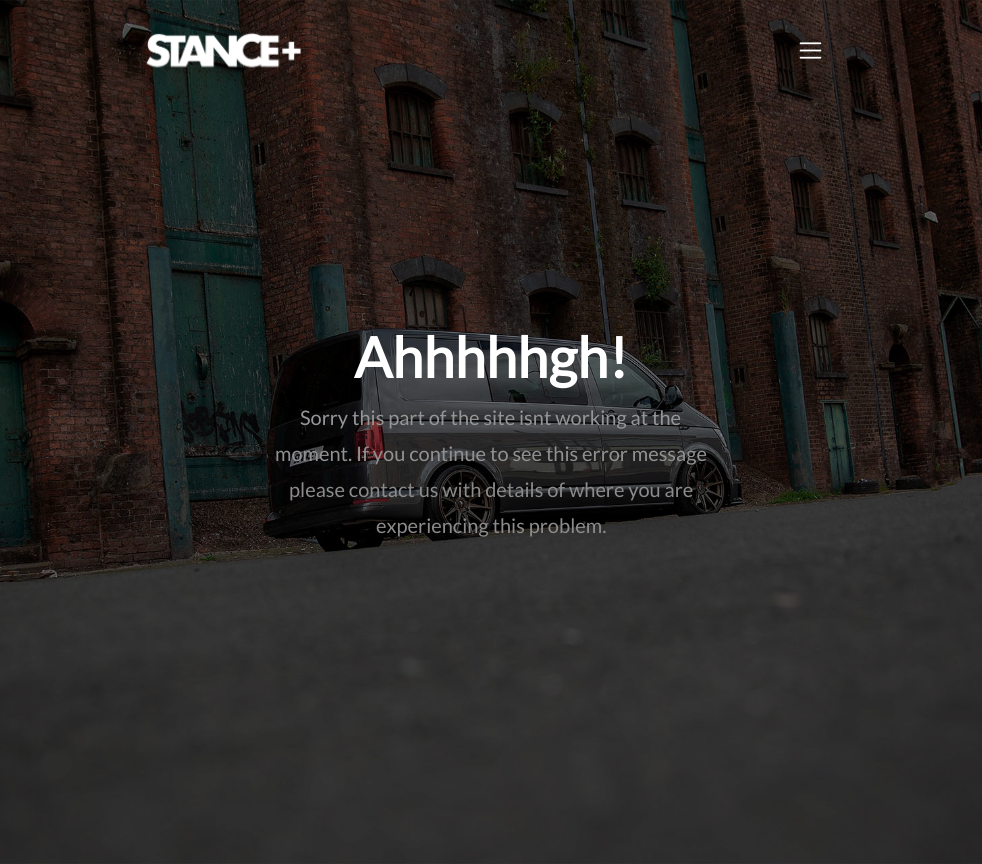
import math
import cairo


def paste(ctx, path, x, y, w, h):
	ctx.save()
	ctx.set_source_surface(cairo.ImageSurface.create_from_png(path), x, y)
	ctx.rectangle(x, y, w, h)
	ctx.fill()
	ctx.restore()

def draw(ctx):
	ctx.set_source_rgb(1, 1, 1)
	ctx.paint()
	paste(ctx, 'media/3.png', 0, 0, 982, 864)
	paste(ctx, 'media/1.png', 146, 32, 155, 36)
	paste(ctx, 'media/2.png', 799, 42, 23, 17)
	ctx.select_font_face('Lato', cairo.FONT_SLANT_NORMAL, cairo.FONT_WEIGHT_BOLD)
	ctx.set_font_size(56.25)
	ctx.set_source_rgb(1, 1, 1)
	ctx.move_to(354, 378)
	ctx.show_text('Ahhhhhgh!')
	ctx.select_font_face('Lato')
	ctx.set_font_size(20)
	ctx.set_source_rgb(0.584, 0.588, 0.592)
	ctx.move_to(300, 425)
	ctx.show_text('Sorry this part of the site isnt working at the')
	ctx.set_source_rgb(0.573, 0.569, 0.569)
	ctx.move_to(275, 461)
	ctx.show_text('moment. If you continue to see this error message')
	ctx.set_source_rgb(0.545, 0.545, 0.545)
	ctx.move_to(289, 497)
	ctx.show_text('please contact us with details of where you are')
	ctx.move_to(376, 533)
	ctx.show_text('experiencing this problem.')


surface = cairo.ImageSurface(cairo.FORMAT_RGB24, 982, 864)
ctx = cairo.Context(surface)
options = cairo.FontOptions()
options.set_hint_metrics(cairo.HINT_METRICS_OFF)
options.set_hint_style(cairo.HINT_STYLE_NONE)
ctx.set_font_options(options)
ctx.set_miter_limit(4)
draw(ctx)
surface.write_to_png('image.png')
